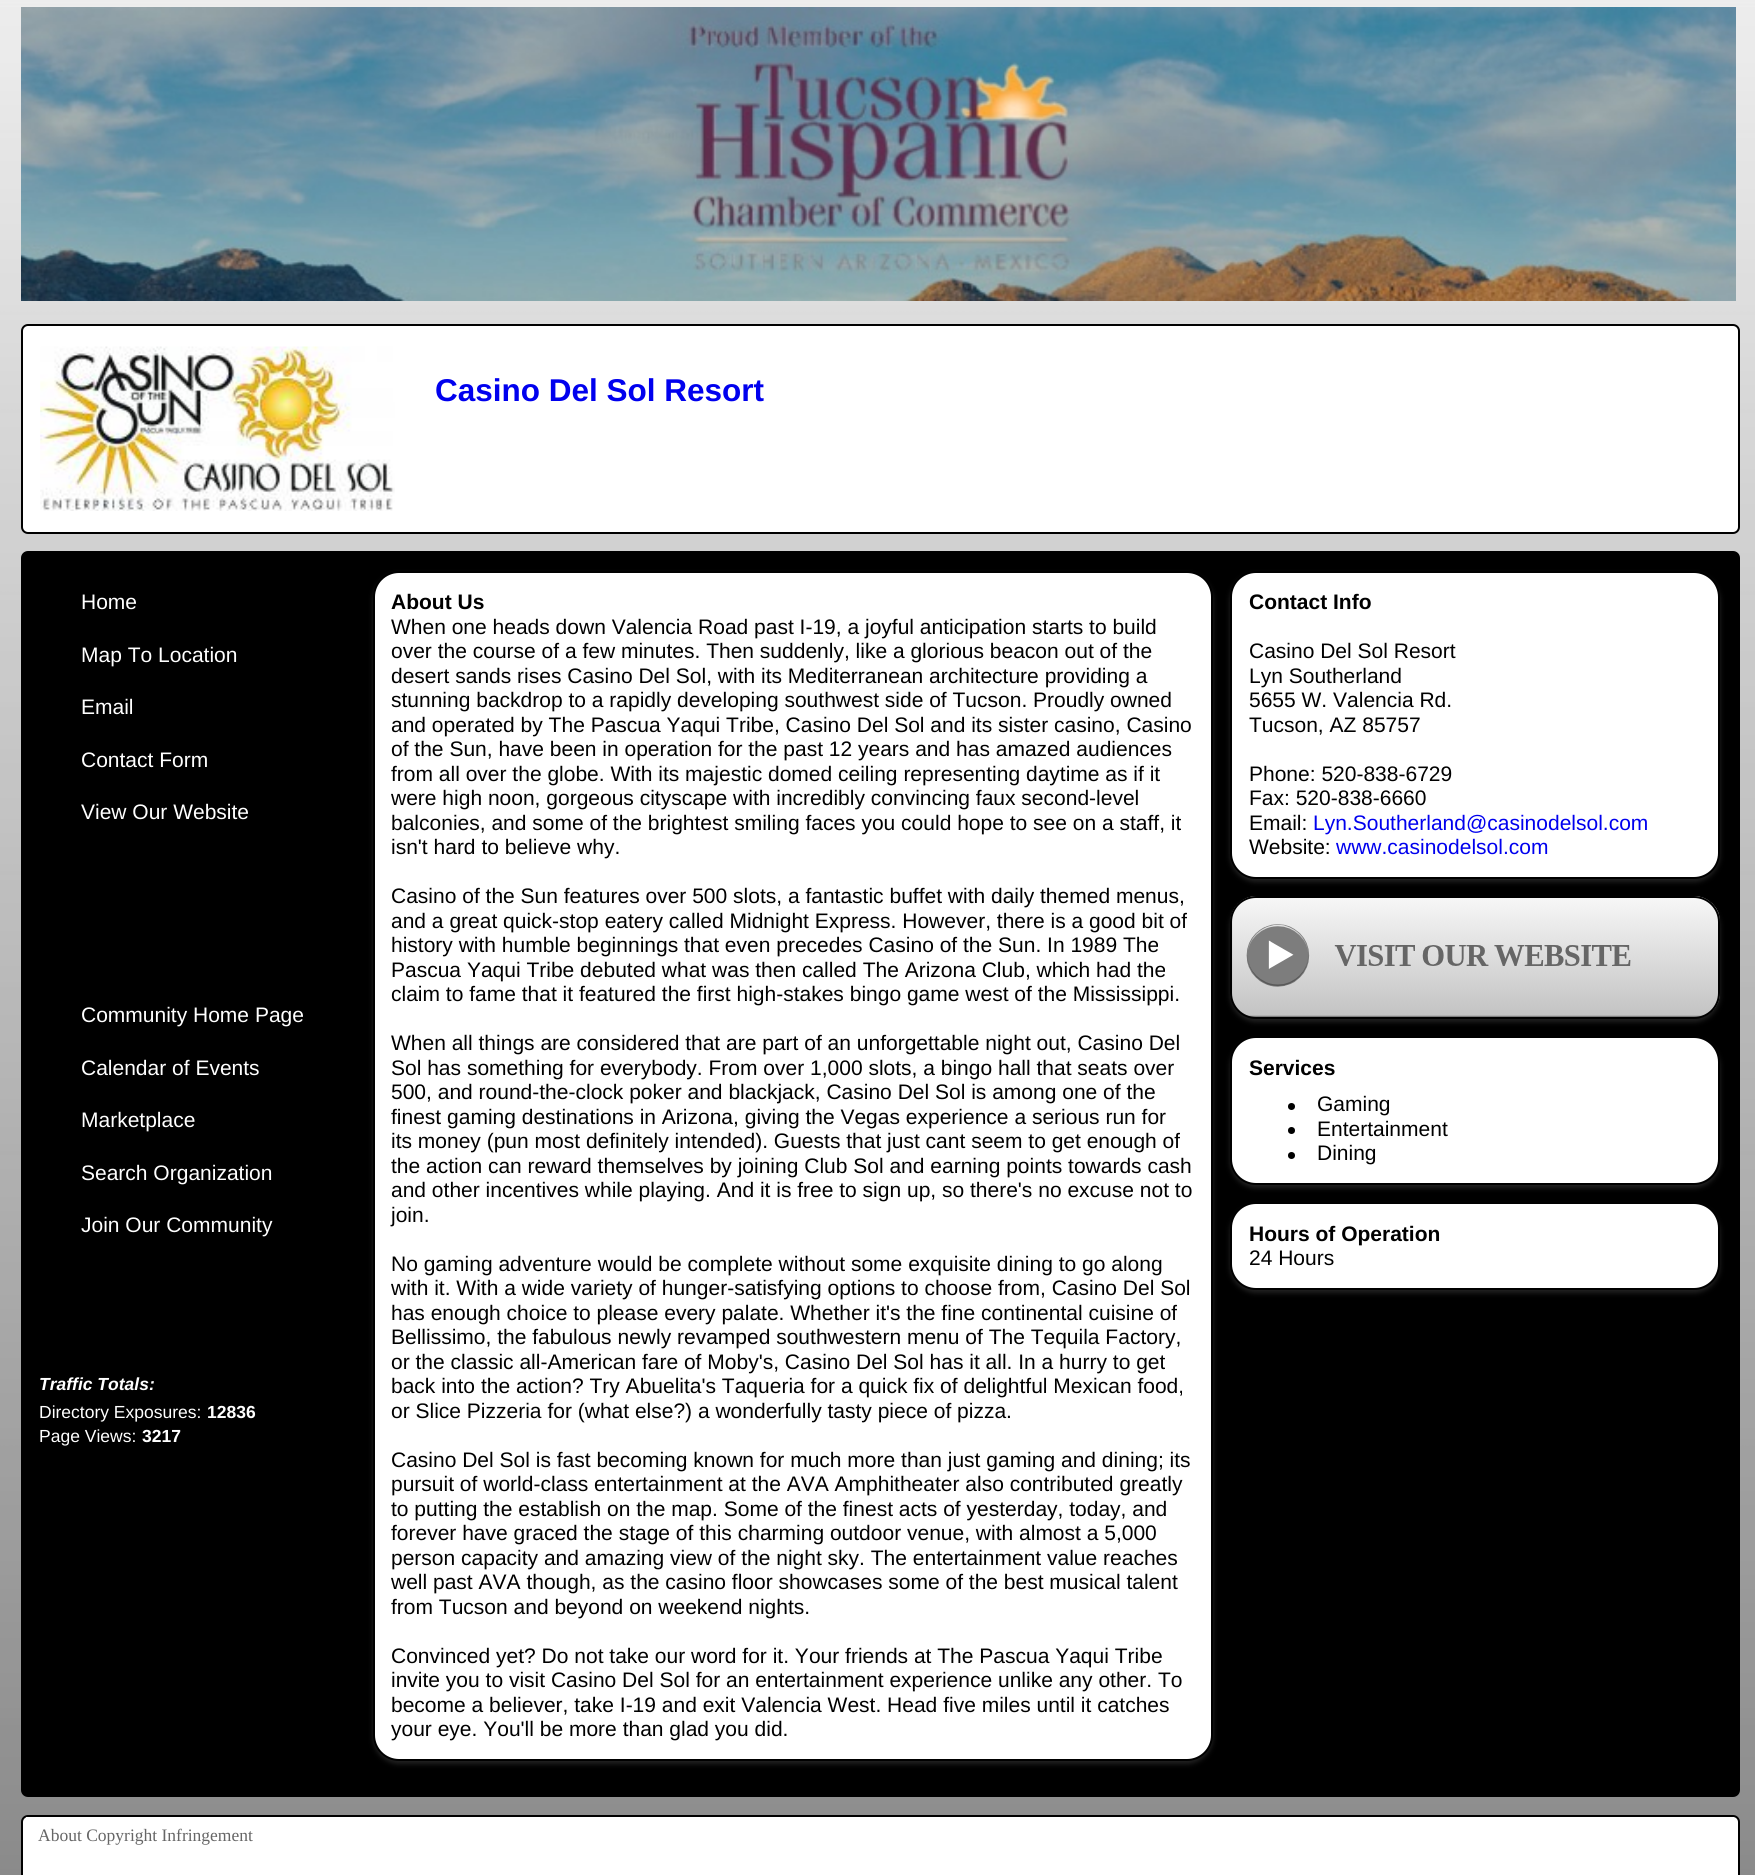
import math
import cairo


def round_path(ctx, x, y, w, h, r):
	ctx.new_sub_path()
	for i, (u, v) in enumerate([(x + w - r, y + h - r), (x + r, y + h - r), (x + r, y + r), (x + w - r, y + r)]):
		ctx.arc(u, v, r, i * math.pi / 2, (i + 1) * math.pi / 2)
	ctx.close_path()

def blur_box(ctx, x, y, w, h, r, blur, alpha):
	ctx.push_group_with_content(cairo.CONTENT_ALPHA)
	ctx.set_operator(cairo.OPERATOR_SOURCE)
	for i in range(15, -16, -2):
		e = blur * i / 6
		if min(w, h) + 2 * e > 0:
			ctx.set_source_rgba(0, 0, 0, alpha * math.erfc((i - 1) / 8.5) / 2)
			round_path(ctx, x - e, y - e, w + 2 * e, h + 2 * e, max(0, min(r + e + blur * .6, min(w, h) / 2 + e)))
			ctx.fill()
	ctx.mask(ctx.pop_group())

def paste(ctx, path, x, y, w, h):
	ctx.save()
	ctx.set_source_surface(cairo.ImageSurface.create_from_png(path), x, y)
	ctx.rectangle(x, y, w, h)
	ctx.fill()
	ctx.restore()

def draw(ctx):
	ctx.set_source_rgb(1, 1, 1)
	ctx.paint()
	paste(ctx, 'media/1.png', 0, 0, 1755, 1875)
	paste(ctx, 'media/2.png', 21, 7, 1715, 294)
	ctx.set_source_rgb(1, 1, 1)
	round_path(ctx, 22, 325, 1717, 208, 6)
	ctx.fill_preserve()
	ctx.set_source_rgb(0, 0, 0)
	ctx.stroke()
	paste(ctx, 'media/3.png', 40, 346, 355, 165)
	ctx.select_font_face('Liberation Sans', cairo.FONT_SLANT_NORMAL, cairo.FONT_WEIGHT_BOLD)
	ctx.set_font_size(31.5)
	ctx.set_source_rgb(0, 0, 0.933)
	ctx.move_to(435, 401)
	ctx.show_text('Casino Del Sol Resort')
	ctx.set_source_rgb(0, 0, 0)
	round_path(ctx, 22, 552, 1717, 1244, 6)
	ctx.fill_preserve()
	ctx.stroke()
	ctx.select_font_face('Liberation Sans')
	ctx.set_font_size(21)
	ctx.set_source_rgb(1, 1, 1)
	for x, y, s in [
		(81, 609, 'Home'),
		(81, 662, 'Map To Location'),
		(81, 714, 'Email'),
		(81, 767, 'Contact Form'),
		(81, 819, 'View Our Website'),
		(81, 1022, 'Community Home Page'),
		(81, 1075, 'Calendar of Events'),
		(81, 1127, 'Marketplace'),
		(81, 1180, 'Search Organization'),
		(81, 1232, 'Join Our Community'),
	]:
		ctx.move_to(x, y)
		ctx.show_text(s)
	ctx.select_font_face('Liberation Sans', cairo.FONT_SLANT_ITALIC, cairo.FONT_WEIGHT_BOLD)
	ctx.set_font_size(17.5)
	ctx.move_to(39, 1390)
	ctx.show_text('Traffic Totals:')
	ctx.select_font_face('Liberation Sans')
	ctx.move_to(39, 1418)
	ctx.show_text('Directory Exposures:')
	ctx.select_font_face('Liberation Sans', cairo.FONT_SLANT_NORMAL, cairo.FONT_WEIGHT_BOLD)
	ctx.move_to(207, 1418)
	ctx.show_text('12836')
	ctx.select_font_face('Liberation Sans')
	ctx.move_to(39, 1442)
	ctx.show_text('Page Views:')
	ctx.select_font_face('Liberation Sans', cairo.FONT_SLANT_NORMAL, cairo.FONT_WEIGHT_BOLD)
	ctx.move_to(142, 1442)
	ctx.show_text('3217')
	ctx.set_source_rgb(0.133, 0.133, 0.133)
	blur_box(ctx, 373, 574, 840, 1190, 26, 2.5, 1)
	ctx.set_source_rgb(1, 1, 1)
	round_path(ctx, 374, 572, 838, 1188, 25)
	ctx.fill_preserve()
	ctx.set_source_rgb(0, 0, 0)
	ctx.stroke()
	ctx.set_font_size(21)
	ctx.move_to(391, 609)
	ctx.show_text('About Us')
	ctx.select_font_face('Liberation Sans')
	for x, y, s in [
		(391, 634, 'When one heads down Valencia Road past I-19, a joyful anticipation starts to build'),
		(391, 658, 'over the course of a few minutes. Then suddenly, like a glorious beacon out of the'),
		(391, 683, 'desert sands rises Casino Del Sol, with its Mediterranean architecture providing a'),
		(391, 707, 'stunning backdrop to a rapidly developing southwest side of Tucson. Proudly owned'),
		(391, 732, 'and operated by The Pascua Yaqui Tribe, Casino Del Sol and its sister casino, Casino'),
		(391, 756, 'of the Sun, have been in operation for the past 12 years and has amazed audiences'),
		(391, 781, 'from all over the globe. With its majestic domed ceiling representing daytime as if it'),
		(391, 805, 'were high noon, gorgeous cityscape with incredibly convincing faux second-level'),
		(391, 830, 'balconies, and some of the brightest smiling faces you could hope to see on a staff, it'),
		(391, 854, 'isn\'t hard to believe why.'),
		(391, 903, 'Casino of the Sun features over 500 slots, a fantastic buffet with daily themed menus,'),
		(391, 928, 'and a great quick-stop eatery called Midnight Express. However, there is a good bit of'),
		(391, 952, 'history with humble beginnings that even precedes Casino of the Sun. In 1989 The'),
		(391, 977, 'Pascua Yaqui Tribe debuted what was then called The Arizona Club, which had the'),
		(391, 1001, 'claim to fame that it featured the first high-stakes bingo game west of the Mississippi.'),
		(391, 1050, 'When all things are considered that are part of an unforgettable night out, Casino Del'),
		(391, 1075, 'Sol has something for everybody. From over 1,000 slots, a bingo hall that seats over'),
		(391, 1099, '500, and round-the-clock poker and blackjack, Casino Del Sol is among one of the'),
		(391, 1124, 'finest gaming destinations in Arizona, giving the Vegas experience a serious run for'),
		(391, 1148, 'its money (pun most definitely intended). Guests that just cant seem to get enough of'),
		(391, 1173, 'the action can reward themselves by joining Club Sol and earning points towards cash'),
		(391, 1197, 'and other incentives while playing. And it is free to sign up, so there\'s no excuse not to'),
		(391, 1222, 'join.'),
		(391, 1271, 'No gaming adventure would be complete without some exquisite dining to go along'),
		(391, 1295, 'with it. With a wide variety of hunger-satisfying options to choose from, Casino Del Sol'),
		(391, 1320, 'has enough choice to please every palate. Whether it\'s the fine continental cuisine of'),
		(391, 1344, 'Bellissimo, the fabulous newly revamped southwestern menu of The Tequila Factory,'),
		(391, 1369, 'or the classic all-American fare of Moby\'s, Casino Del Sol has it all. In a hurry to get'),
		(391, 1393, 'back into the action? Try Abuelita\'s Taqueria for a quick fix of delightful Mexican food,'),
		(391, 1418, 'or Slice Pizzeria for (what else?) a wonderfully tasty piece of pizza.'),
		(391, 1467, 'Casino Del Sol is fast becoming known for much more than just gaming and dining; its'),
		(391, 1491, 'pursuit of world-class entertainment at the AVA Amphitheater also contributed greatly'),
		(391, 1516, 'to putting the establish on the map. Some of the finest acts of yesterday, today, and'),
		(391, 1540, 'forever have graced the stage of this charming outdoor venue, with almost a 5,000'),
		(391, 1565, 'person capacity and amazing view of the night sky. The entertainment value reaches'),
		(391, 1589, 'well past AVA though, as the casino floor showcases some of the best musical talent'),
		(391, 1614, 'from Tucson and beyond on weekend nights.'),
		(391, 1663, 'Convinced yet? Do not take our word for it. Your friends at The Pascua Yaqui Tribe'),
		(391, 1687, 'invite you to visit Casino Del Sol for an entertainment experience unlike any other. To'),
		(391, 1712, 'become a believer, take I-19 and exit Valencia West. Head five miles until it catches'),
		(391, 1736, 'your eye. You\'ll be more than glad you did.'),
	]:
		ctx.move_to(x, y)
		ctx.show_text(s)
	ctx.set_source_rgb(0.133, 0.133, 0.133)
	blur_box(ctx, 1230, 574, 490, 308, 26, 2.5, 1)
	ctx.set_source_rgb(1, 1, 1)
	round_path(ctx, 1231, 572, 488, 306, 25)
	ctx.fill_preserve()
	ctx.set_source_rgb(0, 0, 0)
	ctx.stroke()
	ctx.select_font_face('Liberation Sans', cairo.FONT_SLANT_NORMAL, cairo.FONT_WEIGHT_BOLD)
	ctx.move_to(1249, 609)
	ctx.show_text('Contact Info')
	ctx.select_font_face('Liberation Sans')
	for x, y, s in [
		(1249, 658, 'Casino Del Sol Resort'),
		(1249, 683, 'Lyn Southerland'),
		(1249, 707, '5655 W. Valencia Rd.'),
		(1249, 732, 'Tucson, AZ 85757'),
		(1249, 781, 'Phone: 520-838-6729'),
		(1249, 805, 'Fax: 520-838-6660'),
		(1249, 830, 'Email:'),
	]:
		ctx.move_to(x, y)
		ctx.show_text(s)
	ctx.set_source_rgb(0, 0, 0.933)
	ctx.move_to(1313, 830)
	ctx.show_text('Lyn.Southerland@casinodelsol.com')
	ctx.set_source_rgb(0, 0, 0)
	ctx.move_to(1249, 854)
	ctx.show_text('Website:')
	ctx.set_source_rgb(0, 0, 0.933)
	ctx.move_to(1336, 854)
	ctx.show_text('www.casinodelsol.com')
	ctx.set_source_rgb(0.133, 0.133, 0.133)
	blur_box(ctx, 1230, 900, 490, 122, 26, 2.5, 1)
	paste(ctx, 'media/4.png', 1230, 896, 490, 123)
	round_path(ctx, 1231, 897, 488, 121, 25)
	ctx.set_source_rgb(0, 0, 0)
	ctx.stroke()
	ctx.set_source_rgb(0.133, 0.133, 0.133)
	blur_box(ctx, 1230, 1040, 490, 148, 26, 2.5, 1)
	ctx.set_source_rgb(1, 1, 1)
	round_path(ctx, 1231, 1037, 488, 147, 25)
	ctx.fill_preserve()
	ctx.set_source_rgb(0, 0, 0)
	ctx.stroke()
	ctx.select_font_face('Liberation Sans', cairo.FONT_SLANT_NORMAL, cairo.FONT_WEIGHT_BOLD)
	ctx.move_to(1249, 1075)
	ctx.show_text('Services')
	ctx.new_path()
	ctx.arc(1291.5, 1106.5, 3.5, 0, 2 * math.pi)
	ctx.fill()
	ctx.select_font_face('Liberation Sans')
	ctx.move_to(1317, 1111)
	ctx.show_text('Gaming')
	ctx.new_path()
	ctx.arc(1291.5, 1130.5, 3.5, 0, 2 * math.pi)
	ctx.fill()
	ctx.move_to(1317, 1136)
	ctx.show_text('Entertainment')
	ctx.new_path()
	ctx.arc(1291.5, 1155.5, 3.5, 0, 2 * math.pi)
	ctx.fill()
	ctx.move_to(1317, 1160)
	ctx.show_text('Dining')
	ctx.set_source_rgb(0.133, 0.133, 0.133)
	blur_box(ctx, 1230, 1206, 490, 87, 26, 2.5, 1)
	ctx.set_source_rgb(1, 1, 1)
	round_path(ctx, 1231, 1203, 488, 86, 25)
	ctx.fill_preserve()
	ctx.set_source_rgb(0, 0, 0)
	ctx.stroke()
	ctx.select_font_face('Liberation Sans', cairo.FONT_SLANT_NORMAL, cairo.FONT_WEIGHT_BOLD)
	ctx.move_to(1249, 1241)
	ctx.show_text('Hours of Operation')
	ctx.select_font_face('Liberation Sans')
	ctx.move_to(1249, 1265)
	ctx.show_text('24 Hours')
	ctx.set_source_rgb(1, 1, 1)
	round_path(ctx, 22, 1816, 1717, 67, 6)
	ctx.fill_preserve()
	ctx.set_source_rgb(0, 0, 0)
	ctx.stroke()
	ctx.set_source_rgb(1, 1, 1)
	ctx.rectangle(26, 1817, 1708, 1)
	ctx.fill()
	ctx.select_font_face('Liberation Serif')
	ctx.set_font_size(17.5)
	ctx.set_source_rgb(0.4, 0.4, 0.4)
	ctx.move_to(38, 1841)
	ctx.show_text('About Copyright Infringement')


surface = cairo.ImageSurface(cairo.FORMAT_RGB24, 1755, 1875)
ctx = cairo.Context(surface)
options = cairo.FontOptions()
options.set_hint_metrics(cairo.HINT_METRICS_OFF)
options.set_hint_style(cairo.HINT_STYLE_NONE)
ctx.set_font_options(options)
ctx.set_miter_limit(4)
draw(ctx)
surface.write_to_png('image.png')
